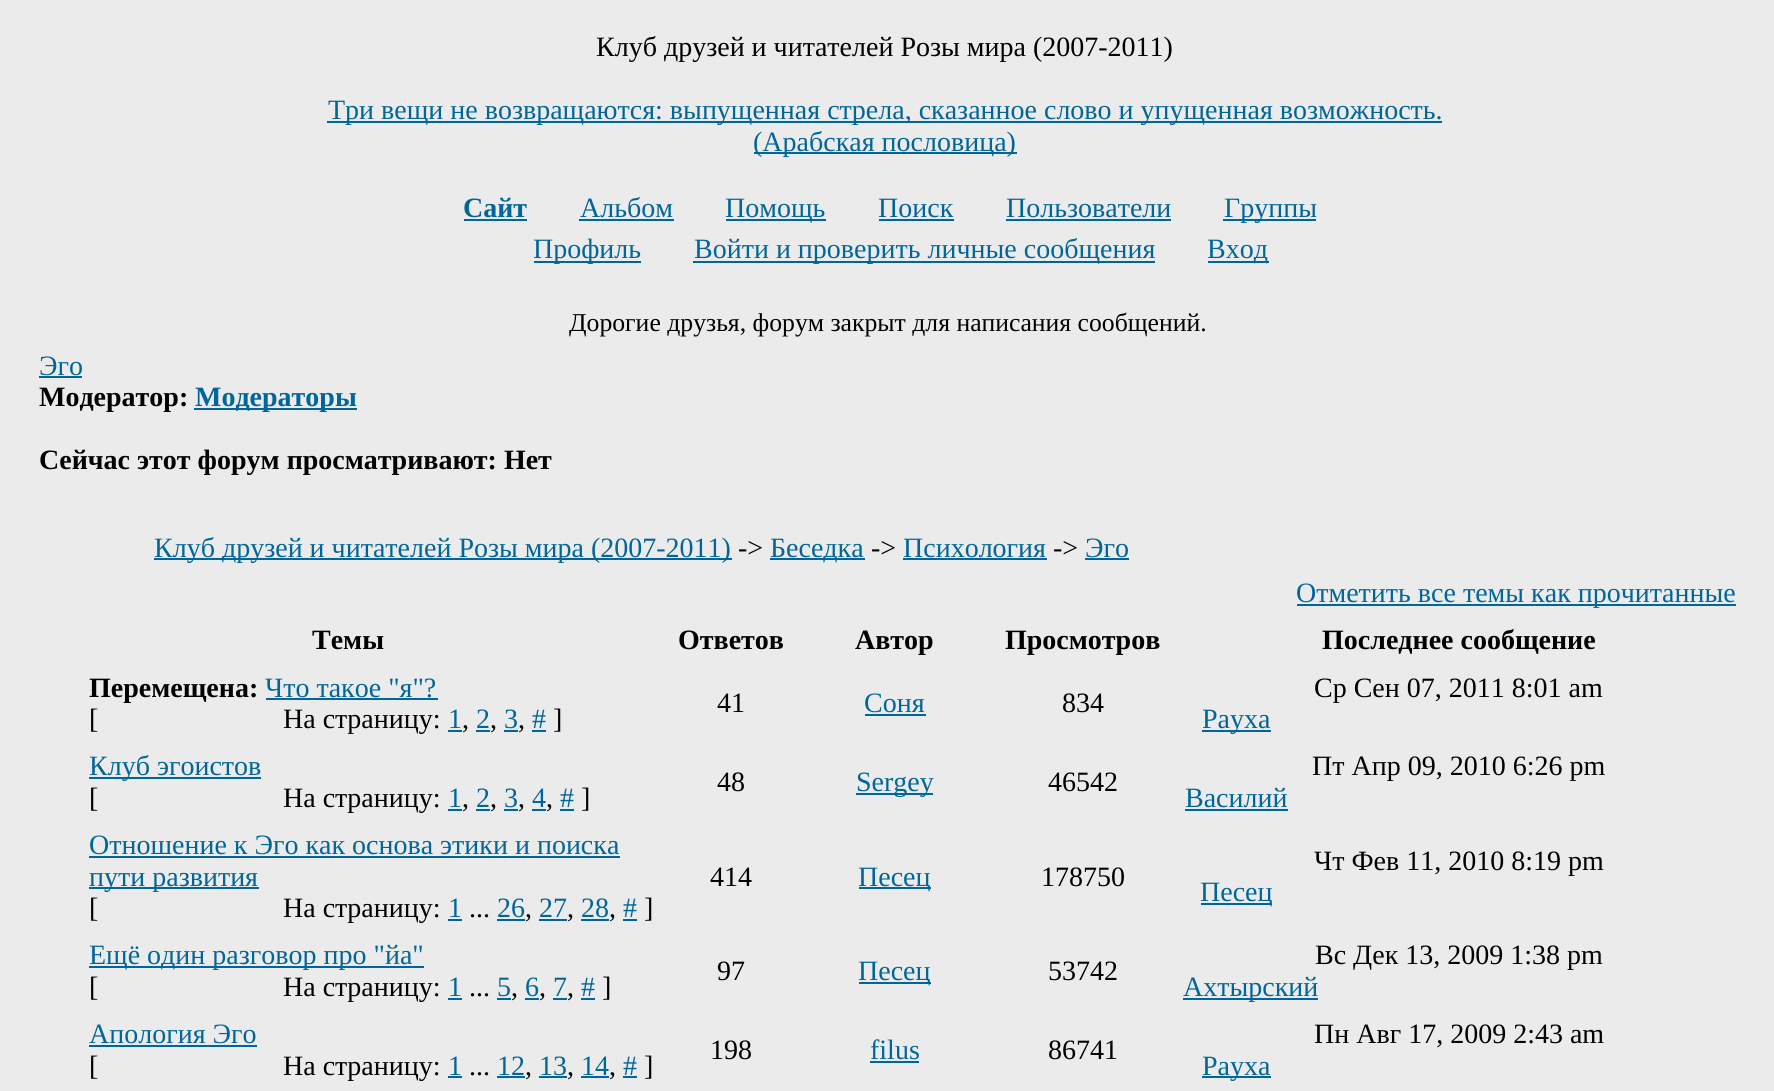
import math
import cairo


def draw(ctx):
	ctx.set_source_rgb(0.918, 0.918, 0.918)
	ctx.paint()
	ctx.select_font_face('Liberation Serif')
	ctx.set_font_size(28)
	ctx.set_source_rgb(0, 0, 0)
	ctx.move_to(596, 56)
	ctx.show_text('Клуб друзей и читателей Розы мира (2007-2011)')
	ctx.set_source_rgb(0, 0.4, 0.6)
	ctx.rectangle(327, 121, 1115, 2)
	ctx.fill()
	ctx.move_to(328, 119)
	ctx.show_text('Три вещи не возвращаются: выпущенная стрела, сказанное слово и упущенная возможность.')
	ctx.rectangle(754, 152, 263, 2)
	ctx.fill()
	ctx.move_to(753, 151)
	ctx.show_text('(Арабская пословица)')
	ctx.select_font_face('Liberation Serif', cairo.FONT_SLANT_NORMAL, cairo.FONT_WEIGHT_BOLD)
	ctx.move_to(463, 217)
	ctx.show_text('Сайт')
	ctx.rectangle(464, 219, 63, 2)
	ctx.fill()
	ctx.select_font_face('Liberation Serif')
	ctx.move_to(580, 217)
	ctx.show_text('Альбом')
	ctx.rectangle(579, 219, 95, 2)
	ctx.fill()
	ctx.rectangle(726, 219, 100, 2)
	ctx.fill()
	ctx.move_to(725, 217)
	ctx.show_text('Помощь')
	ctx.move_to(878, 217)
	ctx.show_text('Поиск')
	ctx.rectangle(879, 219, 75, 2)
	ctx.fill()
	ctx.move_to(1006, 217)
	ctx.show_text('Пользователи')
	ctx.rectangle(1006, 219, 165, 2)
	ctx.fill()
	ctx.rectangle(1223, 219, 93, 2)
	ctx.fill()
	ctx.move_to(1224, 217)
	ctx.show_text('Группы')
	ctx.rectangle(534, 261, 107, 2)
	ctx.fill()
	ctx.move_to(533, 258)
	ctx.show_text('Профиль')
	ctx.rectangle(693, 261, 462, 2)
	ctx.fill()
	ctx.move_to(694, 258)
	ctx.show_text('Войти и проверить личные сообщения')
	ctx.rectangle(1208, 261, 61, 2)
	ctx.fill()
	ctx.move_to(1207, 258)
	ctx.show_text('Вход')
	ctx.set_font_size(25.7)
	ctx.set_source_rgb(0, 0, 0)
	ctx.move_to(569, 331)
	ctx.show_text('Дорогие друзья, форум закрыт для написания сообщений.')
	ctx.set_font_size(28)
	ctx.set_source_rgb(0, 0.4, 0.6)
	ctx.move_to(39, 375)
	ctx.show_text('Эго')
	ctx.rectangle(39, 376, 43, 2)
	ctx.fill()
	ctx.select_font_face('Liberation Serif', cairo.FONT_SLANT_NORMAL, cairo.FONT_WEIGHT_BOLD)
	ctx.set_source_rgb(0, 0, 0)
	ctx.move_to(39, 406)
	ctx.show_text('Модератор:')
	ctx.set_source_rgb(0, 0.4, 0.6)
	ctx.rectangle(194, 408, 163, 2)
	ctx.fill()
	ctx.move_to(195, 406)
	ctx.show_text('Модераторы')
	ctx.set_source_rgb(0, 0, 0)
	ctx.move_to(39, 469)
	ctx.show_text('Сейчас этот форум просматривают: Нет')
	ctx.set_source_rgb(0, 0.4, 0.6)
	ctx.rectangle(154, 558, 578, 2)
	ctx.fill()
	ctx.select_font_face('Liberation Serif')
	ctx.move_to(154, 557)
	ctx.show_text('Клуб друзей и читателей Розы мира (2007-2011)')
	ctx.set_source_rgb(0, 0, 0)
	ctx.move_to(738, 557)
	ctx.show_text('->')
	ctx.set_source_rgb(0, 0.4, 0.6)
	ctx.rectangle(770, 558, 95, 2)
	ctx.fill()
	ctx.move_to(770, 557)
	ctx.show_text('Беседка')
	ctx.set_source_rgb(0, 0, 0)
	ctx.move_to(871, 557)
	ctx.show_text('->')
	ctx.set_source_rgb(0, 0.4, 0.6)
	ctx.move_to(903, 557)
	ctx.show_text('Психология')
	ctx.rectangle(903, 558, 144, 2)
	ctx.fill()
	ctx.set_source_rgb(0, 0, 0)
	ctx.move_to(1053, 557)
	ctx.show_text('->')
	ctx.set_source_rgb(0, 0.4, 0.6)
	ctx.move_to(1085, 557)
	ctx.show_text('Эго')
	ctx.rectangle(1085, 558, 44, 2)
	ctx.fill()
	ctx.rectangle(1297, 604, 439, 2)
	ctx.fill()
	ctx.move_to(1296, 602)
	ctx.show_text('Отметить все темы как прочитанные')
	ctx.select_font_face('Liberation Serif', cairo.FONT_SLANT_NORMAL, cairo.FONT_WEIGHT_BOLD)
	ctx.set_source_rgb(0, 0, 0)
	for x, y, s in [
		(312, 649, 'Темы'),
		(678, 649, 'Ответов'),
		(855, 649, 'Автор'),
		(1005, 649, 'Просмотров'),
		(1322, 649, 'Последнее сообщение'),
		(89, 697, 'Перемещена:'),
	]:
		ctx.move_to(x, y)
		ctx.show_text(s)
	ctx.select_font_face('Liberation Serif')
	ctx.set_source_rgb(0, 0.4, 0.6)
	ctx.move_to(265, 697)
	ctx.show_text('Что такое "я"?')
	ctx.rectangle(266, 698, 172, 2)
	ctx.fill()
	ctx.set_source_rgb(0, 0, 0)
	ctx.move_to(89, 728)
	ctx.show_text('[')
	ctx.move_to(283, 728)
	ctx.show_text('На страницу:')
	ctx.set_source_rgb(0, 0.4, 0.6)
	for x, y, s in [
		(448, 728, '1'),
		(476, 728, '2'),
		(504, 728, '3'),
		(532, 728, '#'),
	]:
		ctx.move_to(x, y)
		ctx.show_text(s)
	ctx.set_source_rgb(0, 0, 0)
	ctx.move_to(553, 728)
	ctx.show_text(']')
	ctx.move_to(462, 728)
	ctx.show_text(',')
	ctx.set_source_rgb(0, 0.4, 0.6)
	ctx.rectangle(448, 730, 14, 2)
	ctx.fill()
	ctx.set_source_rgb(0, 0, 0)
	ctx.move_to(490, 728)
	ctx.show_text(',')
	ctx.set_source_rgb(0, 0.4, 0.6)
	ctx.rectangle(476, 730, 14, 2)
	ctx.fill()
	ctx.set_source_rgb(0, 0, 0)
	ctx.move_to(518, 728)
	ctx.show_text(',')
	ctx.set_source_rgb(0, 0.4, 0.6)
	ctx.rectangle(504, 730, 14, 2)
	ctx.fill()
	ctx.rectangle(532, 730, 14, 2)
	ctx.fill()
	ctx.set_source_rgb(0, 0, 0)
	ctx.move_to(717, 712)
	ctx.show_text('41')
	ctx.set_source_rgb(0, 0.4, 0.6)
	ctx.move_to(864, 712)
	ctx.show_text('Соня')
	ctx.rectangle(865, 714, 61, 2)
	ctx.fill()
	ctx.set_source_rgb(0, 0, 0)
	ctx.move_to(1062, 712)
	ctx.show_text('834')
	ctx.move_to(1314, 697)
	ctx.show_text('Ср Сен 07, 2011 8:01 am')
	ctx.set_source_rgb(0, 0.4, 0.6)
	ctx.rectangle(1202, 730, 69, 2)
	ctx.fill()
	ctx.move_to(1202, 728)
	ctx.show_text('Рауха')
	ctx.rectangle(89, 777, 172, 2)
	ctx.fill()
	ctx.move_to(89, 775)
	ctx.show_text('Клуб эгоистов')
	ctx.set_source_rgb(0, 0, 0)
	ctx.move_to(89, 807)
	ctx.show_text('[')
	ctx.move_to(283, 807)
	ctx.show_text('На страницу:')
	ctx.set_source_rgb(0, 0.4, 0.6)
	for x, y, s in [
		(448, 807, '1'),
		(476, 807, '2'),
		(504, 807, '3'),
		(532, 807, '4'),
		(560, 807, '#'),
	]:
		ctx.move_to(x, y)
		ctx.show_text(s)
	ctx.set_source_rgb(0, 0, 0)
	ctx.move_to(581, 807)
	ctx.show_text(']')
	ctx.move_to(462, 807)
	ctx.show_text(',')
	ctx.set_source_rgb(0, 0.4, 0.6)
	ctx.rectangle(448, 809, 14, 2)
	ctx.fill()
	ctx.set_source_rgb(0, 0, 0)
	ctx.move_to(490, 807)
	ctx.show_text(',')
	ctx.set_source_rgb(0, 0.4, 0.6)
	ctx.rectangle(476, 809, 14, 2)
	ctx.fill()
	ctx.set_source_rgb(0, 0, 0)
	ctx.move_to(518, 807)
	ctx.show_text(',')
	ctx.set_source_rgb(0, 0.4, 0.6)
	ctx.rectangle(504, 809, 14, 2)
	ctx.fill()
	ctx.set_source_rgb(0, 0, 0)
	ctx.move_to(546, 807)
	ctx.show_text(',')
	ctx.set_source_rgb(0, 0.4, 0.6)
	ctx.rectangle(532, 809, 14, 2)
	ctx.fill()
	ctx.rectangle(560, 809, 14, 2)
	ctx.fill()
	ctx.set_source_rgb(0, 0, 0)
	ctx.move_to(717, 791)
	ctx.show_text('48')
	ctx.set_source_rgb(0, 0.4, 0.6)
	ctx.rectangle(856, 793, 77, 2)
	ctx.fill()
	ctx.move_to(856, 791)
	ctx.show_text('Sergey')
	ctx.set_source_rgb(0, 0, 0)
	ctx.move_to(1048, 791)
	ctx.show_text('46542')
	ctx.move_to(1312, 775)
	ctx.show_text('Пт Апр 09, 2010 6:26 pm')
	ctx.set_source_rgb(0, 0.4, 0.6)
	ctx.move_to(1185, 807)
	ctx.show_text('Василий')
	ctx.rectangle(1185, 809, 103, 2)
	ctx.fill()
	ctx.move_to(89, 854)
	ctx.show_text('Отношение к Эго как основа этики и поиска')
	ctx.rectangle(89, 856, 531, 2)
	ctx.fill()
	ctx.rectangle(89, 887, 170, 2)
	ctx.fill()
	ctx.move_to(89, 886)
	ctx.show_text('пути развития')
	ctx.set_source_rgb(0, 0, 0)
	ctx.move_to(89, 917)
	ctx.show_text('[')
	ctx.move_to(283, 917)
	ctx.show_text('На страницу:')
	ctx.set_source_rgb(0, 0.4, 0.6)
	ctx.move_to(448, 917)
	ctx.show_text('1')
	ctx.set_source_rgb(0, 0, 0)
	ctx.move_to(469, 917)
	ctx.show_text('...')
	ctx.set_source_rgb(0, 0.4, 0.6)
	ctx.rectangle(448, 919, 14, 2)
	ctx.fill()
	ctx.move_to(497, 917)
	ctx.show_text('26')
	ctx.set_source_rgb(0, 0, 0)
	ctx.move_to(525, 917)
	ctx.show_text(',')
	ctx.set_source_rgb(0, 0.4, 0.6)
	ctx.rectangle(497, 919, 28, 2)
	ctx.fill()
	ctx.move_to(539, 917)
	ctx.show_text('27')
	ctx.set_source_rgb(0, 0, 0)
	ctx.move_to(567, 917)
	ctx.show_text(',')
	ctx.set_source_rgb(0, 0.4, 0.6)
	ctx.rectangle(539, 919, 28, 2)
	ctx.fill()
	ctx.move_to(581, 917)
	ctx.show_text('28')
	ctx.set_source_rgb(0, 0, 0)
	ctx.move_to(609, 917)
	ctx.show_text(',')
	ctx.set_source_rgb(0, 0.4, 0.6)
	ctx.rectangle(581, 919, 28, 2)
	ctx.fill()
	ctx.rectangle(623, 919, 14, 2)
	ctx.fill()
	ctx.move_to(623, 917)
	ctx.show_text('#')
	ctx.set_source_rgb(0, 0, 0)
	ctx.move_to(644, 917)
	ctx.show_text(']')
	ctx.move_to(710, 886)
	ctx.show_text('414')
	ctx.set_source_rgb(0, 0.4, 0.6)
	ctx.rectangle(859, 887, 72, 2)
	ctx.fill()
	ctx.move_to(858, 886)
	ctx.show_text('Песец')
	ctx.set_source_rgb(0, 0, 0)
	ctx.move_to(1041, 886)
	ctx.show_text('178750')
	ctx.move_to(1314, 870)
	ctx.show_text('Чт Фев 11, 2010 8:19 pm')
	ctx.set_source_rgb(0, 0.4, 0.6)
	ctx.rectangle(1201, 903, 71, 2)
	ctx.fill()
	ctx.move_to(1200, 901)
	ctx.show_text('Песец')
	ctx.rectangle(89, 966, 335, 2)
	ctx.fill()
	ctx.move_to(89, 964)
	ctx.show_text('Ещё один разговор про "йа"')
	ctx.set_source_rgb(0, 0, 0)
	ctx.move_to(89, 996)
	ctx.show_text('[')
	ctx.move_to(283, 996)
	ctx.show_text('На страницу:')
	ctx.set_source_rgb(0, 0.4, 0.6)
	ctx.move_to(448, 996)
	ctx.show_text('1')
	ctx.set_source_rgb(0, 0, 0)
	ctx.move_to(469, 996)
	ctx.show_text('...')
	ctx.set_source_rgb(0, 0.4, 0.6)
	ctx.rectangle(448, 998, 14, 2)
	ctx.fill()
	ctx.move_to(497, 996)
	ctx.show_text('5')
	ctx.set_source_rgb(0, 0, 0)
	ctx.move_to(511, 996)
	ctx.show_text(',')
	ctx.set_source_rgb(0, 0.4, 0.6)
	ctx.rectangle(497, 998, 14, 2)
	ctx.fill()
	ctx.move_to(525, 996)
	ctx.show_text('6')
	ctx.set_source_rgb(0, 0, 0)
	ctx.move_to(539, 996)
	ctx.show_text(',')
	ctx.set_source_rgb(0, 0.4, 0.6)
	ctx.rectangle(525, 998, 14, 2)
	ctx.fill()
	ctx.move_to(553, 996)
	ctx.show_text('7')
	ctx.set_source_rgb(0, 0, 0)
	ctx.move_to(567, 996)
	ctx.show_text(',')
	ctx.set_source_rgb(0, 0.4, 0.6)
	ctx.rectangle(553, 998, 14, 2)
	ctx.fill()
	ctx.rectangle(581, 998, 14, 2)
	ctx.fill()
	ctx.move_to(581, 996)
	ctx.show_text('#')
	ctx.set_source_rgb(0, 0, 0)
	ctx.move_to(602, 996)
	ctx.show_text(']')
	ctx.move_to(717, 980)
	ctx.show_text('97')
	ctx.set_source_rgb(0, 0.4, 0.6)
	ctx.rectangle(859, 982, 72, 2)
	ctx.fill()
	ctx.move_to(858, 980)
	ctx.show_text('Песец')
	ctx.set_source_rgb(0, 0, 0)
	ctx.move_to(1048, 980)
	ctx.show_text('53742')
	ctx.move_to(1315, 964)
	ctx.show_text('Вс Дек 13, 2009 1:38 pm')
	ctx.set_source_rgb(0, 0.4, 0.6)
	ctx.rectangle(1183, 998, 135, 2)
	ctx.fill()
	ctx.move_to(1183, 996)
	ctx.show_text('Ахтырский')
	ctx.move_to(89, 1043)
	ctx.show_text('Апология Эго')
	ctx.rectangle(89, 1045, 168, 2)
	ctx.fill()
	ctx.set_source_rgb(0, 0, 0)
	ctx.move_to(89, 1075)
	ctx.show_text('[')
	ctx.move_to(283, 1075)
	ctx.show_text('На страницу:')
	ctx.set_source_rgb(0, 0.4, 0.6)
	ctx.move_to(448, 1075)
	ctx.show_text('1')
	ctx.set_source_rgb(0, 0, 0)
	ctx.move_to(469, 1075)
	ctx.show_text('...')
	ctx.set_source_rgb(0, 0.4, 0.6)
	ctx.rectangle(448, 1076, 14, 2)
	ctx.fill()
	ctx.move_to(497, 1075)
	ctx.show_text('12')
	ctx.set_source_rgb(0, 0, 0)
	ctx.move_to(525, 1075)
	ctx.show_text(',')
	ctx.set_source_rgb(0, 0.4, 0.6)
	ctx.rectangle(497, 1076, 28, 2)
	ctx.fill()
	ctx.move_to(539, 1075)
	ctx.show_text('13')
	ctx.set_source_rgb(0, 0, 0)
	ctx.move_to(567, 1075)
	ctx.show_text(',')
	ctx.set_source_rgb(0, 0.4, 0.6)
	ctx.rectangle(539, 1076, 28, 2)
	ctx.fill()
	ctx.move_to(581, 1075)
	ctx.show_text('14')
	ctx.set_source_rgb(0, 0, 0)
	ctx.move_to(609, 1075)
	ctx.show_text(',')
	ctx.set_source_rgb(0, 0.4, 0.6)
	ctx.rectangle(581, 1076, 28, 2)
	ctx.fill()
	ctx.rectangle(623, 1076, 14, 2)
	ctx.fill()
	ctx.move_to(623, 1075)
	ctx.show_text('#')
	ctx.set_source_rgb(0, 0, 0)
	ctx.move_to(644, 1075)
	ctx.show_text(']')
	ctx.move_to(710, 1059)
	ctx.show_text('198')
	ctx.set_source_rgb(0, 0.4, 0.6)
	ctx.move_to(870, 1059)
	ctx.show_text('filus')
	ctx.rectangle(870, 1061, 49, 2)
	ctx.fill()
	ctx.set_source_rgb(0, 0, 0)
	ctx.move_to(1048, 1059)
	ctx.show_text('86741')
	ctx.move_to(1314, 1043)
	ctx.show_text('Пн Авг 17, 2009 2:43 am')
	ctx.set_source_rgb(0, 0.4, 0.6)
	ctx.rectangle(1202, 1076, 69, 2)
	ctx.fill()
	ctx.move_to(1202, 1075)
	ctx.show_text('Рауха')


surface = cairo.ImageSurface(cairo.FORMAT_RGB24, 1774, 1091)
ctx = cairo.Context(surface)
options = cairo.FontOptions()
options.set_hint_metrics(cairo.HINT_METRICS_OFF)
options.set_hint_style(cairo.HINT_STYLE_NONE)
ctx.set_font_options(options)
ctx.set_miter_limit(4)
draw(ctx)
surface.write_to_png('image.png')
